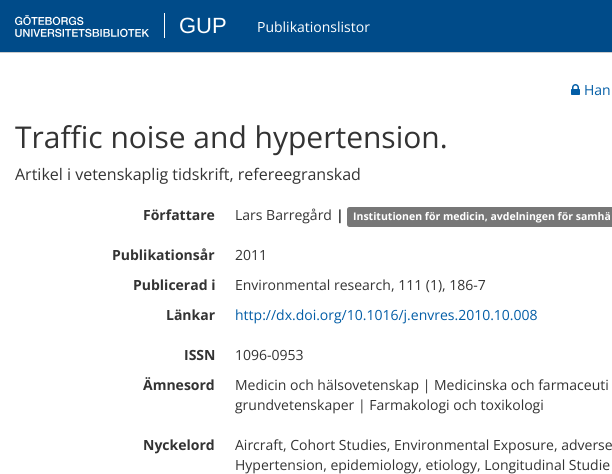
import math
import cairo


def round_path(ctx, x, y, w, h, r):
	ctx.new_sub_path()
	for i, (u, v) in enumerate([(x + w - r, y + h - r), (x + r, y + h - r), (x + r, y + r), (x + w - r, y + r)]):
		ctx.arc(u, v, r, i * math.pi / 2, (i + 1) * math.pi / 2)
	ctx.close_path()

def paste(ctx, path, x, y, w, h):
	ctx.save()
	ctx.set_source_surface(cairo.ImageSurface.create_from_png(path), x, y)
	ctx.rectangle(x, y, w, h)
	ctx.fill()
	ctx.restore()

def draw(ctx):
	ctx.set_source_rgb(1, 1, 1)
	ctx.paint()
	ctx.set_source_rgb(0, 0.294, 0.537)
	ctx.rectangle(0, 0, 612, 52)
	ctx.fill()
	ctx.set_source_rgb(0.8, 0.8, 0.8)
	ctx.rectangle(0, 52, 612, 1)
	ctx.fill()
	paste(ctx, 'media/1.png', 15, 15, 134, 22)
	ctx.set_source_rgb(1, 1, 1)
	ctx.rectangle(164, 13, 1, 25)
	ctx.fill()
	ctx.select_font_face('Liberation Sans')
	ctx.set_font_size(22)
	ctx.move_to(179, 33)
	ctx.show_text('GUP')
	ctx.select_font_face('Open Sans')
	ctx.set_font_size(14)
	ctx.move_to(257, 32)
	ctx.show_text('Publikationslistor')
	paste(ctx, 'media/2.png', 571, 84, 9, 11)
	ctx.set_source_rgb(0.008, 0.365, 0.651)
	ctx.move_to(584, 95)
	ctx.show_text('Han')
	ctx.set_font_size(30)
	ctx.set_source_rgb(0.2, 0.2, 0.2)
	ctx.move_to(15, 148)
	ctx.show_text('Traffic noise and hypertension.')
	ctx.set_font_size(16)
	ctx.move_to(15, 180)
	ctx.show_text('Artikel i vetenskaplig tidskrift, refereegranskad')
	ctx.select_font_face('Open Sans', cairo.FONT_SLANT_NORMAL, cairo.FONT_WEIGHT_BOLD)
	ctx.set_font_size(14)
	ctx.move_to(143, 220)
	ctx.show_text('Författare')
	ctx.select_font_face('Open Sans')
	ctx.move_to(235, 220)
	ctx.show_text('Lars Barregård')
	ctx.select_font_face('Open Sans', cairo.FONT_SLANT_NORMAL, cairo.FONT_WEIGHT_BOLD)
	ctx.move_to(336, 220)
	ctx.show_text('|')
	ctx.set_source_rgb(0.467, 0.467, 0.467)
	round_path(ctx, 347, 207, 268, 20, 2.5)
	ctx.fill()
	ctx.set_font_size(10.5)
	ctx.set_source_rgb(1, 1, 1)
	ctx.move_to(353, 220)
	ctx.show_text('Institutionen för medicin, avdelningen för samhä')
	ctx.set_font_size(14)
	ctx.set_source_rgb(0.2, 0.2, 0.2)
	ctx.move_to(112, 260)
	ctx.show_text('Publikationsår')
	ctx.select_font_face('Open Sans')
	ctx.move_to(235, 260)
	ctx.show_text('2011')
	ctx.select_font_face('Open Sans', cairo.FONT_SLANT_NORMAL, cairo.FONT_WEIGHT_BOLD)
	ctx.move_to(133, 290)
	ctx.show_text('Publicerad i')
	ctx.select_font_face('Open Sans')
	ctx.move_to(235, 290)
	ctx.show_text('Environmental research, 111 (1), 186-7')
	ctx.select_font_face('Open Sans', cairo.FONT_SLANT_NORMAL, cairo.FONT_WEIGHT_BOLD)
	ctx.move_to(166, 320)
	ctx.show_text('Länkar')
	ctx.select_font_face('Open Sans')
	ctx.set_source_rgb(0.008, 0.365, 0.651)
	ctx.move_to(235, 320)
	ctx.show_text('http://dx.doi.org/10.1016/j.envres.2010.10.008')
	ctx.select_font_face('Open Sans', cairo.FONT_SLANT_NORMAL, cairo.FONT_WEIGHT_BOLD)
	ctx.set_source_rgb(0.2, 0.2, 0.2)
	ctx.move_to(184, 360)
	ctx.show_text('ISSN')
	ctx.select_font_face('Open Sans')
	ctx.move_to(235, 360)
	ctx.show_text('1096-0953')
	ctx.select_font_face('Open Sans', cairo.FONT_SLANT_NORMAL, cairo.FONT_WEIGHT_BOLD)
	ctx.move_to(143, 390)
	ctx.show_text('Ämnesord')
	ctx.select_font_face('Open Sans')
	ctx.move_to(235, 390)
	ctx.show_text('Medicin och hälsovetenskap | Medicinska och farmaceuti')
	ctx.move_to(235, 410)
	ctx.show_text('grundvetenskaper | Farmakologi och toxikologi')
	ctx.select_font_face('Open Sans', cairo.FONT_SLANT_NORMAL, cairo.FONT_WEIGHT_BOLD)
	ctx.move_to(143, 450)
	ctx.show_text('Nyckelord')
	ctx.select_font_face('Open Sans')
	ctx.move_to(235, 450)
	ctx.show_text('Aircraft, Cohort Studies, Environmental Exposure, adverse')
	ctx.move_to(235, 470)
	ctx.show_text('Hypertension, epidemiology, etiology, Longitudinal Studie')


surface = cairo.ImageSurface(cairo.FORMAT_RGB24, 612, 474)
ctx = cairo.Context(surface)
options = cairo.FontOptions()
options.set_hint_metrics(cairo.HINT_METRICS_OFF)
options.set_hint_style(cairo.HINT_STYLE_NONE)
ctx.set_font_options(options)
ctx.set_miter_limit(4)
draw(ctx)
surface.write_to_png('image.png')
